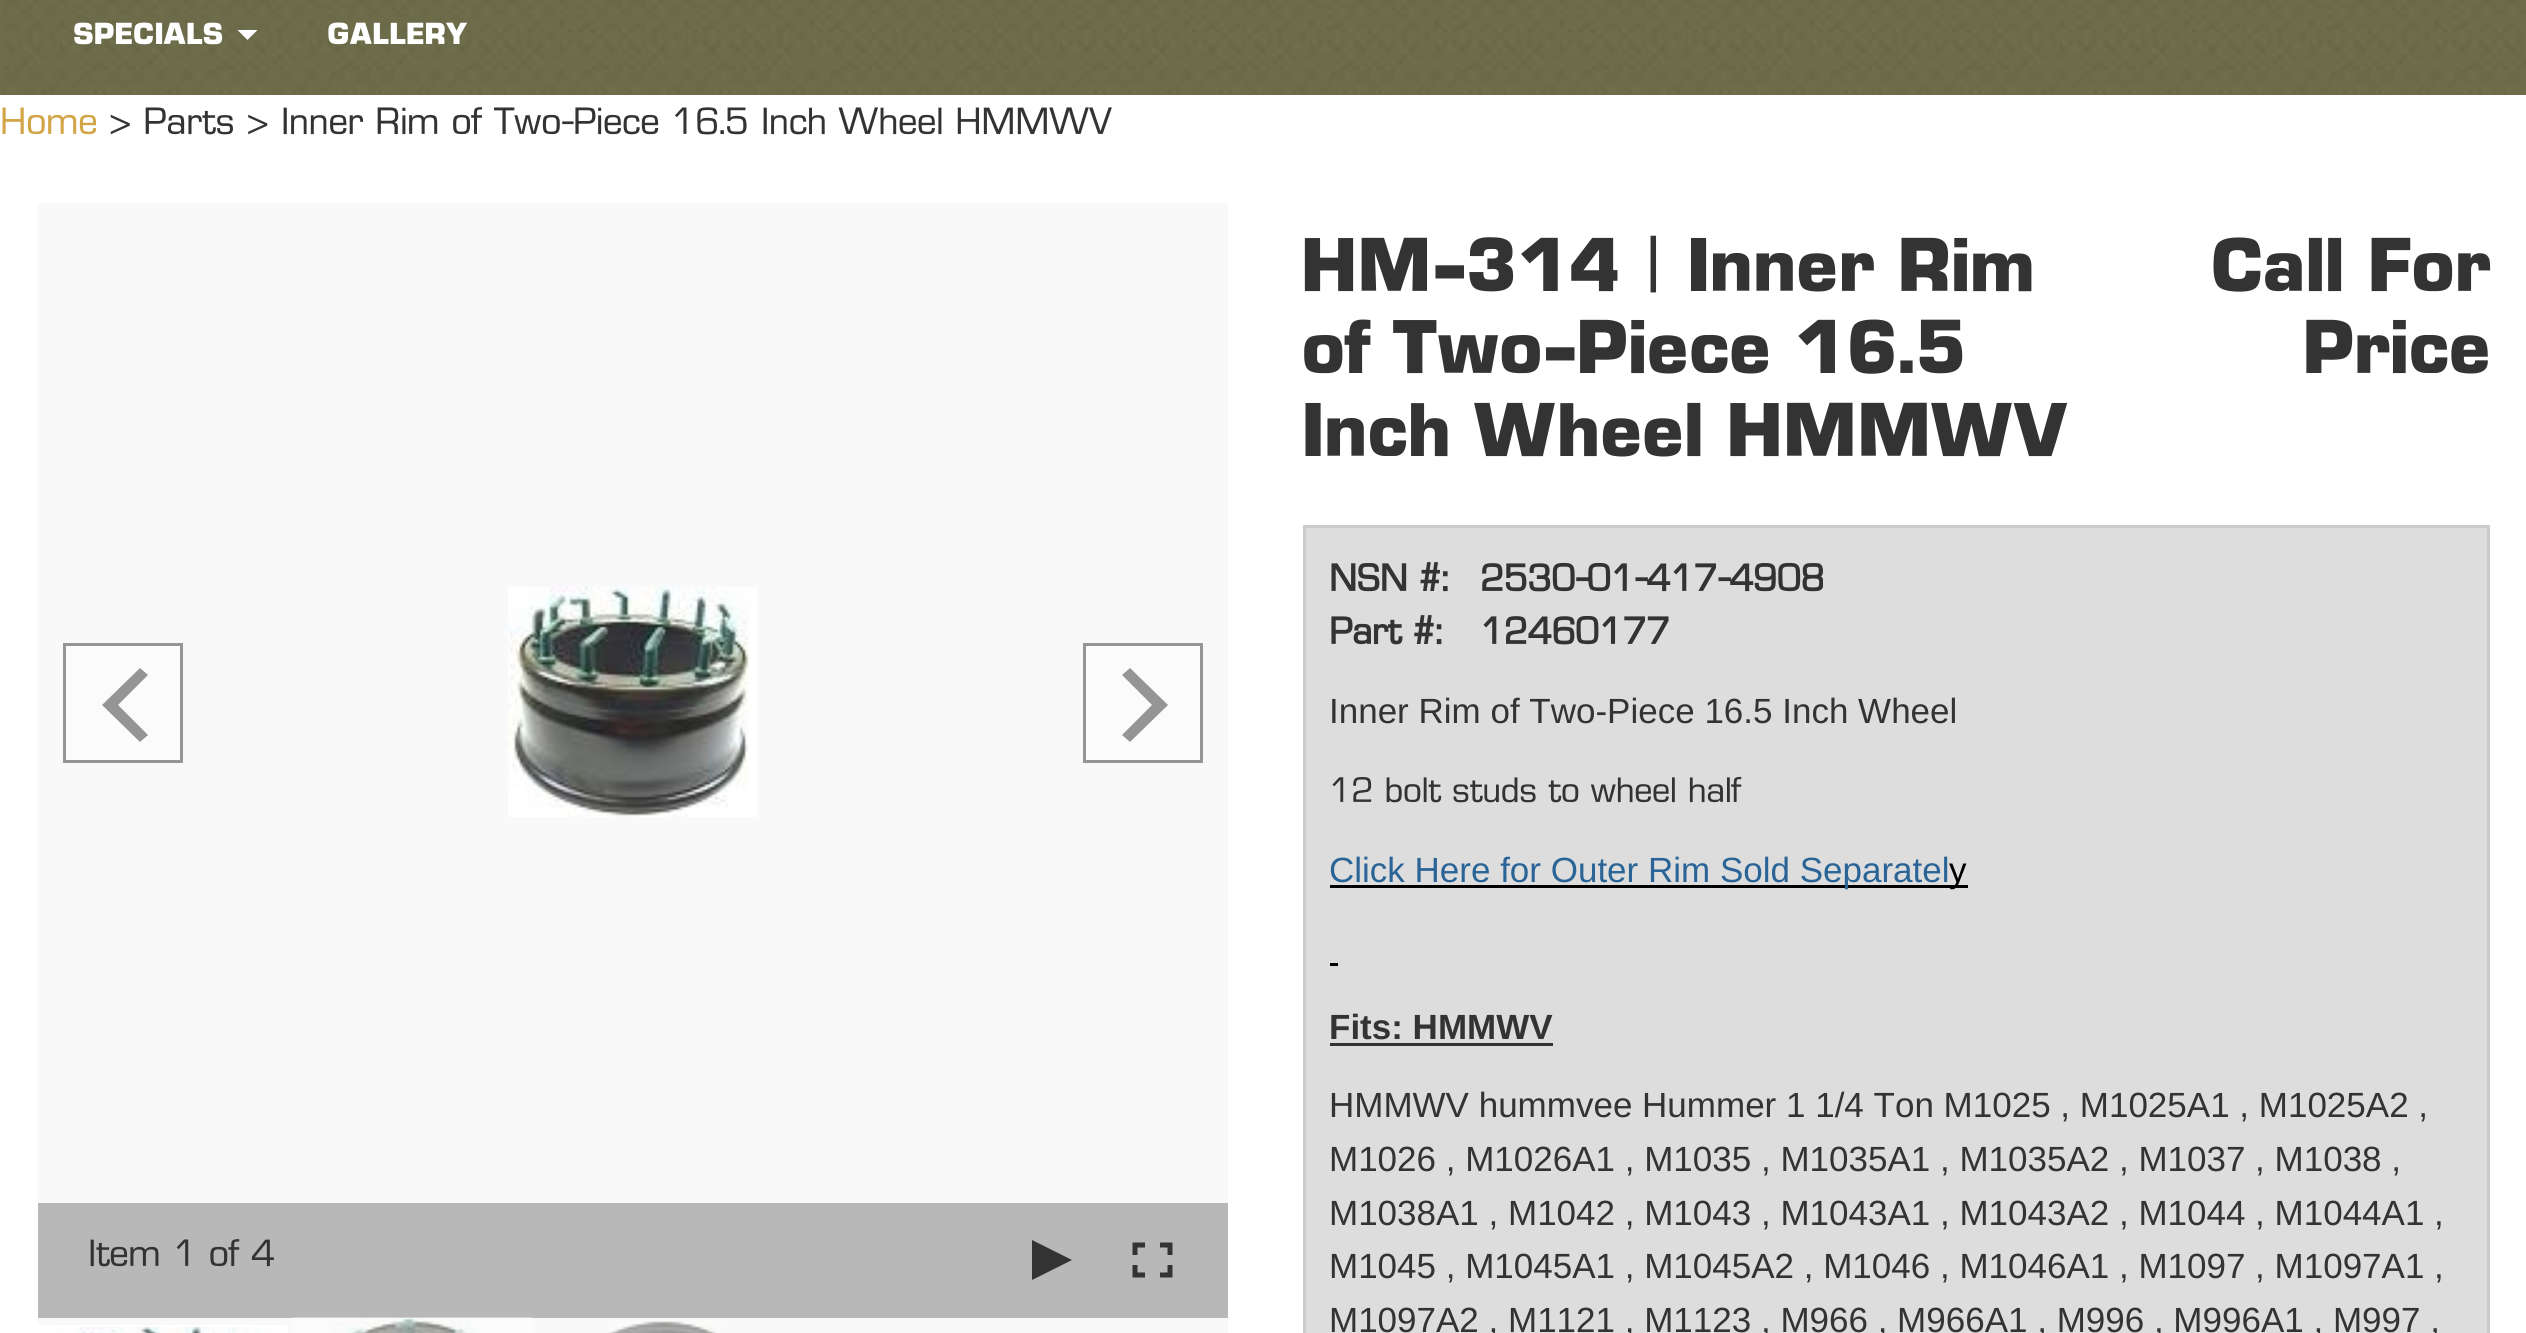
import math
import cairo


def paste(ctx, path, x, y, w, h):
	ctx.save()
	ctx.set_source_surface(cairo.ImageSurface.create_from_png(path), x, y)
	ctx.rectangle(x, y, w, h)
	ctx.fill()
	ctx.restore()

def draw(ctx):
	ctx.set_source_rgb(1, 1, 1)
	ctx.paint()
	ctx.set_source_rgb(0.427, 0.427, 0.294)
	ctx.rectangle(0, 0, 2526, 95)
	ctx.fill()
	paste(ctx, 'media/1.png', 3, 0, 2523, 94)
	ctx.select_font_face('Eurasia', cairo.FONT_SLANT_NORMAL, cairo.FONT_WEIGHT_BOLD)
	ctx.set_font_size(30)
	ctx.set_source_rgb(1, 1, 1)
	ctx.move_to(73, 44)
	ctx.show_text('SPECIALS')
	ctx.new_path()
	ctx.move_to(237.5, 30)
	ctx.line_to(257.5, 30)
	ctx.line_to(247.5, 40)
	ctx.close_path()
	ctx.fill()
	ctx.move_to(327, 44)
	ctx.show_text('GALLERY')
	ctx.select_font_face('Eurasia')
	ctx.set_font_size(37.5)
	ctx.set_source_rgb(0.82, 0.643, 0.271)
	ctx.move_to(0, 134)
	ctx.show_text('Home')
	ctx.set_source_rgb(0.2, 0.2, 0.2)
	ctx.move_to(109, 134)
	ctx.show_text('> Parts > Inner Rim of Two-Piece 16.5 Inch Wheel HMMWV')
	ctx.set_source_rgb(0, 0, 0)
	ctx.rectangle(38, 1203, 1190, 115)
	ctx.fill()
	ctx.set_source_rgb(0.973, 0.973, 0.973)
	ctx.rectangle(38, 203, 1190, 1000)
	ctx.fill()
	paste(ctx, 'media/2.png', 508, 587, 249, 230)
	ctx.set_source_rgb(0.984, 0.984, 0.984)
	ctx.rectangle(64.5, 644.5, 117, 117)
	ctx.fill_preserve()
	ctx.set_source_rgb(0.584, 0.584, 0.584)
	ctx.set_line_width(3)
	ctx.stroke()
	ctx.new_path()
	ctx.move_to(148, 735)
	ctx.line_to(118, 705)
	ctx.line_to(148, 675)
	ctx.line_to(140, 668)
	ctx.line_to(102, 705)
	ctx.line_to(140, 742)
	ctx.close_path()
	ctx.fill()
	ctx.set_source_rgb(0.984, 0.984, 0.984)
	ctx.rectangle(1084.5, 644.5, 117, 117)
	ctx.fill_preserve()
	ctx.set_source_rgb(0.584, 0.584, 0.584)
	ctx.stroke()
	ctx.new_path()
	ctx.move_to(1122, 675)
	ctx.line_to(1152, 705)
	ctx.line_to(1122, 735)
	ctx.line_to(1130, 742)
	ctx.line_to(1168, 705)
	ctx.line_to(1130, 668)
	ctx.close_path()
	ctx.fill()
	ctx.set_source_rgb(0.973, 0.973, 0.973)
	ctx.rectangle(38, 1318, 1190, 15)
	ctx.fill()
	paste(ctx, 'media/5.png', 292, 1317, 241, 16)
	ctx.set_source_rgba(0.902, 0.902, 0.902, 0.8)
	ctx.rectangle(38, 1203, 1190, 115)
	ctx.fill()
	ctx.set_source_rgb(0.2, 0.2, 0.2)
	ctx.move_to(88, 1266)
	ctx.show_text('Item 1 of 4')
	ctx.new_path()
	ctx.move_to(1032, 1280)
	ctx.line_to(1032, 1240)
	ctx.line_to(1072, 1260)
	ctx.close_path()
	ctx.fill()
	paste(ctx, 'media/3.png', 1132, 1242, 41, 36)
	ctx.rectangle(39.5, 1326.5, 247, 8)
	ctx.set_source_rgb(1, 1, 1)
	ctx.stroke()
	paste(ctx, 'media/4.png', 41, 1327, 244, 6)
	paste(ctx, 'media/6.png', 609, 1321, 115, 12)
	ctx.select_font_face('Eurasia', cairo.FONT_SLANT_NORMAL, cairo.FONT_WEIGHT_BOLD)
	ctx.set_font_size(75)
	ctx.set_source_rgb(0.2, 0.2, 0.2)
	for x, y, s in [
		(1301, 291, 'HM-314 | Inner Rim'),
		(1301, 373, 'of Two-Piece 16.5'),
		(1301, 456, 'Inch Wheel HMMWV'),
		(2210, 291, 'Call For'),
		(2302, 373, 'Price'),
	]:
		ctx.move_to(x, y)
		ctx.show_text(s)
	ctx.set_source_rgb(0.867, 0.867, 0.867)
	ctx.rectangle(1304.5, 526.5, 1184, 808)
	ctx.fill_preserve()
	ctx.set_source_rgb(0.8, 0.8, 0.8)
	ctx.stroke()
	ctx.select_font_face('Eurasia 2', cairo.FONT_SLANT_NORMAL, cairo.FONT_WEIGHT_BOLD)
	ctx.set_font_size(37.5)
	ctx.set_source_rgb(0.2, 0.2, 0.2)
	for x, y, s in [
		(1329, 591, 'NSN #:'),
		(1480, 591, '2530-01-417-4908'),
		(1329, 644, 'Part #:'),
		(1480, 644, '12460177'),
	]:
		ctx.move_to(x, y)
		ctx.show_text(s)
	ctx.select_font_face('Liberation Sans')
	ctx.set_font_size(35)
	ctx.move_to(1329, 723)
	ctx.show_text('Inner Rim of Two-Piece 16.5 Inch Wheel')
	ctx.select_font_face('Eurasia')
	ctx.move_to(1329, 802)
	ctx.show_text('12 bolt studs to wheel half')
	ctx.set_source_rgb(0, 0, 0)
	ctx.rectangle(1330, 885, 638, 3)
	ctx.fill()
	ctx.select_font_face('Liberation Sans')
	ctx.set_source_rgb(0.165, 0.392, 0.588)
	ctx.move_to(1329, 882)
	ctx.show_text('Click Here for Outer Rim Sold Separatel')
	ctx.set_source_rgb(0, 0, 0)
	ctx.move_to(1949, 882)
	ctx.show_text('y')
	ctx.rectangle(1330, 963, 8, 3)
	ctx.fill()
	ctx.select_font_face('Liberation Sans', cairo.FONT_SLANT_NORMAL, cairo.FONT_WEIGHT_BOLD)
	ctx.set_source_rgb(0.2, 0.2, 0.2)
	ctx.move_to(1329, 1039)
	ctx.show_text('Fits: HMMWV')
	ctx.rectangle(1330, 1043, 223, 3)
	ctx.fill()
	ctx.select_font_face('Liberation Sans')
	for x, y, s in [
		(1329, 1117, 'HMMWV hummvee Hummer 1 1/4 Ton M1025 , M1025A1 , M1025A2 ,'),
		(1329, 1171, 'M1026 , M1026A1 , M1035 , M1035A1 , M1035A2 , M1037 , M1038 ,'),
		(1329, 1225, 'M1038A1 , M1042 , M1043 , M1043A1 , M1043A2 , M1044 , M1044A1 ,'),
		(1329, 1278, 'M1045 , M1045A1 , M1045A2 , M1046 , M1046A1 , M1097 , M1097A1 ,'),
		(1329, 1332, 'M1097A2 , M1121 , M1123 , M966 , M966A1 , M996 , M996A1 , M997 ,'),
	]:
		ctx.move_to(x, y)
		ctx.show_text(s)


surface = cairo.ImageSurface(cairo.FORMAT_RGB24, 2526, 1333)
ctx = cairo.Context(surface)
options = cairo.FontOptions()
options.set_hint_metrics(cairo.HINT_METRICS_OFF)
options.set_hint_style(cairo.HINT_STYLE_NONE)
ctx.set_font_options(options)
ctx.set_miter_limit(4)
draw(ctx)
surface.write_to_png('image.png')
